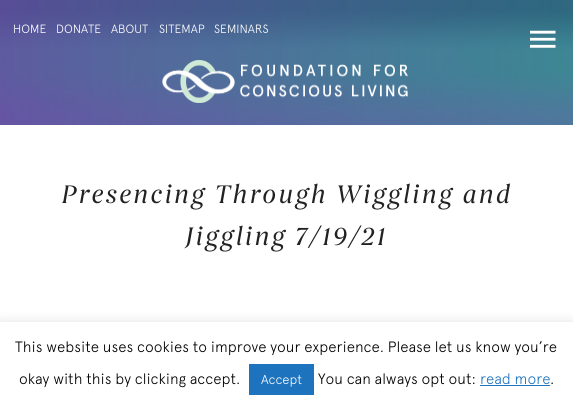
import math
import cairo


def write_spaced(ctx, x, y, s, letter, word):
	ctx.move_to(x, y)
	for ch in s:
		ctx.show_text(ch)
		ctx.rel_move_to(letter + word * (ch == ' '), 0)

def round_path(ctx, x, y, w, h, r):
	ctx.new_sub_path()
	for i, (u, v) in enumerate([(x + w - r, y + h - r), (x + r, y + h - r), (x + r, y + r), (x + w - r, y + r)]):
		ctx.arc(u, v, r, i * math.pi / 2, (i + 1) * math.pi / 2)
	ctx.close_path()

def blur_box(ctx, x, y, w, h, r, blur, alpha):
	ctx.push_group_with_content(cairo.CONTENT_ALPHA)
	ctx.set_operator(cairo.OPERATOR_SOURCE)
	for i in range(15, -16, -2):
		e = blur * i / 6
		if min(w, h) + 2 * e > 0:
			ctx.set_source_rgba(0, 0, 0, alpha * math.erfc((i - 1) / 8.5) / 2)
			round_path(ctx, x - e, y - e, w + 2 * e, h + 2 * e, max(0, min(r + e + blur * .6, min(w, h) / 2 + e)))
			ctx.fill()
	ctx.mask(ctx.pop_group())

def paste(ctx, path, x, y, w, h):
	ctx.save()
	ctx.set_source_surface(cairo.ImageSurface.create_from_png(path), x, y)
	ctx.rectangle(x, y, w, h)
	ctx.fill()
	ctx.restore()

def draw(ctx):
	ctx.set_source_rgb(1, 1, 1)
	ctx.paint()
	paste(ctx, 'media/1.png', 0, 0, 573, 125)
	ctx.select_font_face('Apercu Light')
	ctx.set_font_size(12)
	ctx.set_source_rgb(1, 1, 1)
	for x, y, s in [
		(13, 33, 'HOME'),
		(56, 33, 'DONATE'),
		(111, 33, 'ABOUT'),
		(159, 33, 'SITEMAP'),
		(214, 33, 'SEMINARS'),
	]:
		ctx.move_to(x, y)
		ctx.show_text(s)
	paste(ctx, 'media/2.png', 530, 30, 26, 18)
	paste(ctx, 'media/3.png', 162, 60, 246, 43)
	ctx.select_font_face('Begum')
	ctx.set_font_size(26)
	ctx.set_source_rgb(0.133, 0.133, 0.133)
	write_spaced(ctx, 61, 203, 'Presencing Through Wiggling and', 2, 0)
	write_spaced(ctx, 185, 245, 'Jiggling 7/19/21', 2, 0)
	ctx.set_source_rgb(0.675, 0.671, 0.671)
	blur_box(ctx, 0, 321, 573, 85, 0, 5, 0.3)
	ctx.set_source_rgb(1, 1, 1)
	ctx.rectangle(0, 322, 573, 85)
	ctx.fill()
	ctx.select_font_face('Apercu Light')
	ctx.set_font_size(15)
	ctx.set_source_rgb(0, 0, 0)
	ctx.move_to(15, 352)
	ctx.show_text('This website uses cookies to improve your experience. Please let us know you’re')
	ctx.move_to(19, 384)
	ctx.show_text('okay with this by clicking accept.')
	ctx.set_source_rgb(0.118, 0.451, 0.745)
	ctx.rectangle(249, 364, 65, 31)
	ctx.fill()
	ctx.set_font_size(13)
	ctx.set_source_rgb(1, 1, 1)
	ctx.move_to(261, 384)
	ctx.show_text('Accept')
	ctx.set_font_size(15)
	ctx.set_source_rgb(0, 0, 0)
	ctx.move_to(318, 384)
	ctx.show_text('You can always opt out:')
	ctx.set_source_rgb(0.118, 0.451, 0.745)
	ctx.move_to(480, 384)
	ctx.show_text('read more')
	ctx.rectangle(480, 385, 70, 1)
	ctx.fill()
	ctx.set_source_rgb(0, 0, 0)
	ctx.move_to(550, 384)
	ctx.show_text('.')


surface = cairo.ImageSurface(cairo.FORMAT_RGB24, 573, 407)
ctx = cairo.Context(surface)
options = cairo.FontOptions()
options.set_hint_metrics(cairo.HINT_METRICS_OFF)
options.set_hint_style(cairo.HINT_STYLE_NONE)
ctx.set_font_options(options)
ctx.set_miter_limit(4)
draw(ctx)
surface.write_to_png('image.png')
